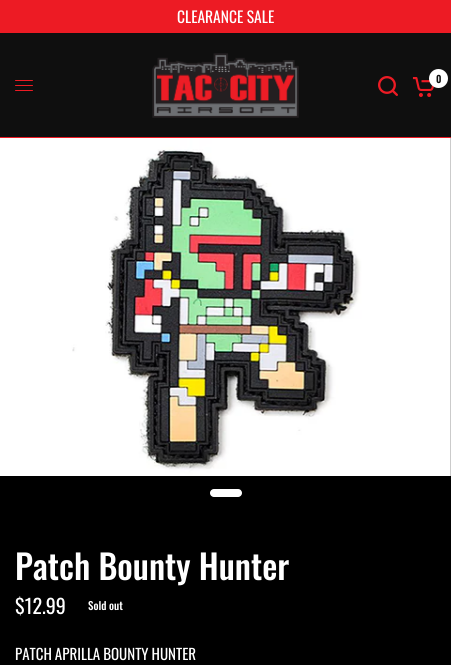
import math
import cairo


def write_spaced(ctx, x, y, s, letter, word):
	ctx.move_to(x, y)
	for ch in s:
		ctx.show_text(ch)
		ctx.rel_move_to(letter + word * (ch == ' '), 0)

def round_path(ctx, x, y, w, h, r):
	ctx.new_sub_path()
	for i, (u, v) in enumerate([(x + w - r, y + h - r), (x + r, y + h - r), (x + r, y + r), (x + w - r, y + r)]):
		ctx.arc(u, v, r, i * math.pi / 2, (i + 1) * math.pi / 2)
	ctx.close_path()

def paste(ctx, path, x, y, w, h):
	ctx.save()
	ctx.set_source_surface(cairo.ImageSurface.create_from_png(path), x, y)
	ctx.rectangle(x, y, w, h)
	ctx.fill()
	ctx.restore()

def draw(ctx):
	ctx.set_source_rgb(0, 0, 0)
	ctx.paint()
	ctx.set_source_rgb(0.929, 0.106, 0.141)
	ctx.rectangle(0, 0, 451, 33)
	ctx.fill()
	ctx.select_font_face('Oswald')
	ctx.set_font_size(15.5)
	ctx.set_source_rgb(1, 1, 1)
	ctx.move_to(177, 23)
	ctx.show_text('CLEARANCE SALE')
	ctx.set_source_rgb(0.059, 0.059, 0.059)
	ctx.rectangle(0, 33, 451, 104)
	ctx.fill()
	paste(ctx, 'media/1.png', 152, 53, 147, 65)
	paste(ctx, 'media/2.png', 378, 76, 20, 20)
	paste(ctx, 'media/3.png', 412, 77, 22, 20)
	ctx.set_source_rgb(1, 1, 1)
	ctx.arc(438.5, 78.5, 9.5, 0, 2 * math.pi)
	ctx.fill()
	ctx.select_font_face('Oswald SemiBold')
	ctx.set_font_size(10)
	ctx.set_source_rgb(0.059, 0.059, 0.059)
	ctx.move_to(436, 83)
	ctx.show_text('0')
	ctx.set_source_rgb(0.929, 0.106, 0.141)
	round_path(ctx, 15, 80, 18, 1, 0.5)
	ctx.fill()
	round_path(ctx, 15, 85, 18, 1, 0.5)
	ctx.fill()
	round_path(ctx, 15, 90, 18, 1, 0.5)
	ctx.fill()
	ctx.rectangle(0, 137, 451, 1)
	ctx.fill()
	paste(ctx, 'media/4.png', 0, 138, 451, 338)
	ctx.set_source_rgb(1, 1, 1)
	round_path(ctx, 210, 489, 32, 8, 4)
	ctx.fill()
	ctx.select_font_face('Oswald Medium')
	ctx.set_font_size(34)
	ctx.move_to(15, 580)
	ctx.show_text('Patch Bounty Hunter')
	ctx.select_font_face('Oswald')
	ctx.set_font_size(20)
	ctx.move_to(15, 614)
	ctx.show_text('$12.99')
	ctx.select_font_face('Oswald Medium')
	ctx.set_font_size(11)
	ctx.move_to(88, 610)
	ctx.show_text('Sold out')
	ctx.select_font_face('Oswald')
	ctx.set_font_size(15)
	write_spaced(ctx, 15, 660, 'PATCH APRILLA BOUNTY HUNTER', 0, -0.5)


surface = cairo.ImageSurface(cairo.FORMAT_RGB24, 451, 665)
ctx = cairo.Context(surface)
options = cairo.FontOptions()
options.set_hint_metrics(cairo.HINT_METRICS_OFF)
options.set_hint_style(cairo.HINT_STYLE_NONE)
ctx.set_font_options(options)
ctx.set_miter_limit(4)
draw(ctx)
surface.write_to_png('image.png')
